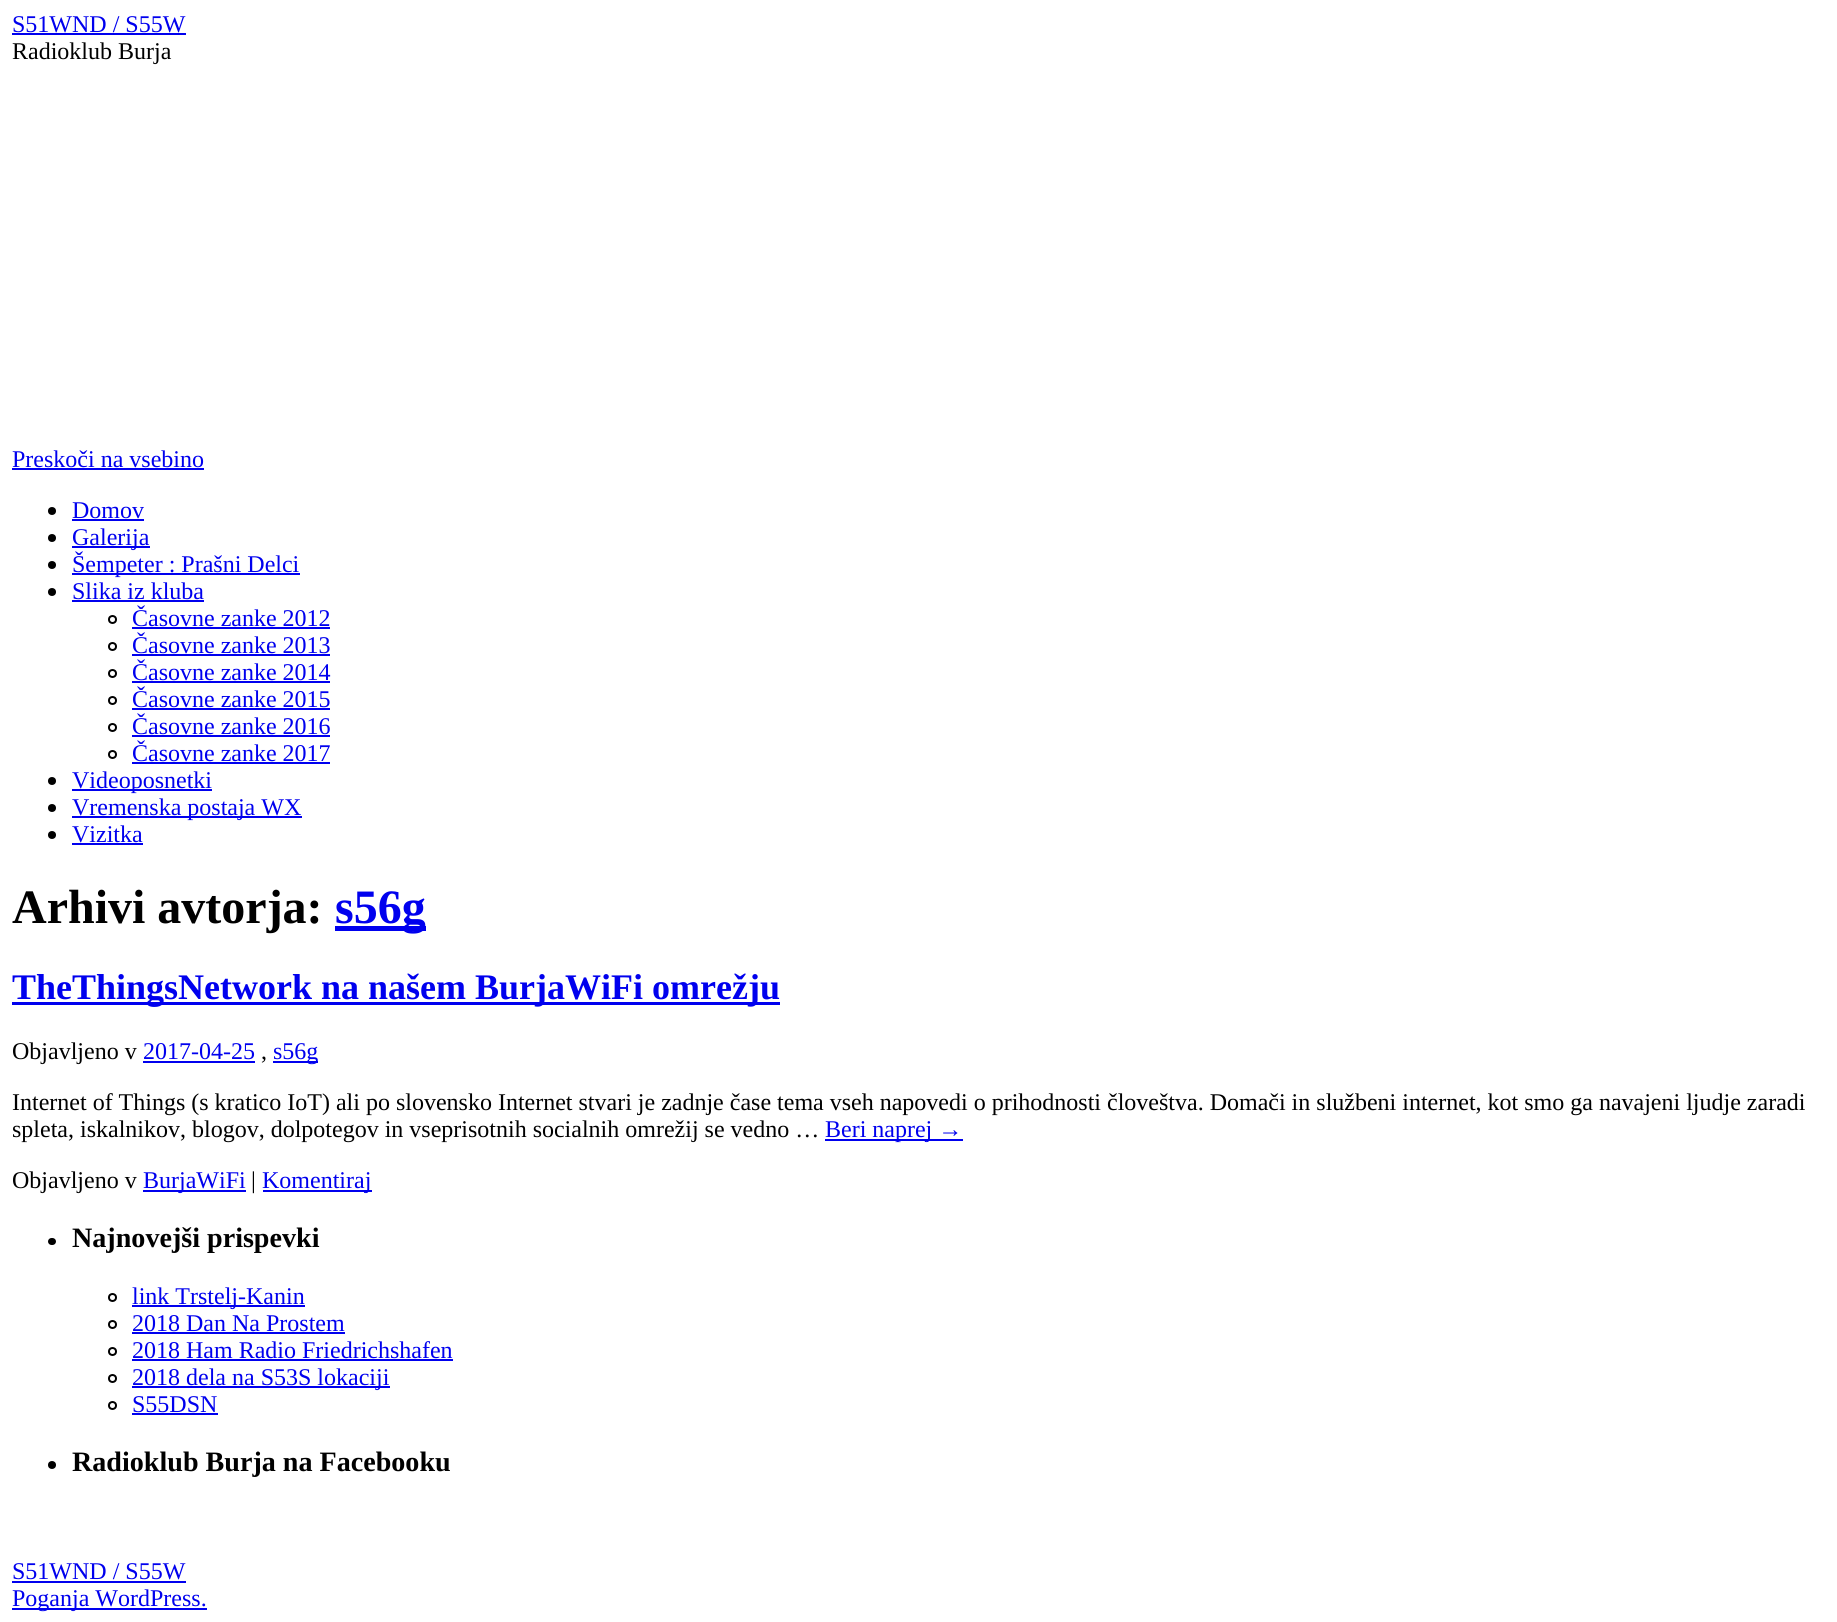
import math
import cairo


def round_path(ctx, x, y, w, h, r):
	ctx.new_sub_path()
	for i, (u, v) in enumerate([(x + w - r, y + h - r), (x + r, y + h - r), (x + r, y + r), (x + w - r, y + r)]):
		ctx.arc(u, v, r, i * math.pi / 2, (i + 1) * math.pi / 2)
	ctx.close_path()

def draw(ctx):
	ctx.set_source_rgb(1, 1, 1)
	ctx.paint()
	ctx.select_font_face('Liberation Serif')
	ctx.set_font_size(24)
	ctx.set_source_rgb(0, 0, 0.933)
	ctx.move_to(12, 32)
	ctx.show_text('S51WND / S55W')
	ctx.rectangle(12, 33, 174, 2)
	ctx.fill()
	ctx.set_source_rgb(0, 0, 0)
	ctx.move_to(12, 59)
	ctx.show_text('Radioklub Burja')
	ctx.set_source_rgb(0, 0, 0.933)
	ctx.move_to(12, 467)
	ctx.show_text('Preskoči na vsebino')
	ctx.rectangle(12, 468, 192, 2)
	ctx.fill()
	ctx.set_source_rgb(0, 0, 0)
	ctx.arc(52, 511, 4, 0, 2 * math.pi)
	ctx.fill()
	ctx.set_source_rgb(0, 0, 0.933)
	ctx.move_to(72, 518)
	ctx.show_text('Domov')
	ctx.rectangle(72, 519, 72, 2)
	ctx.fill()
	ctx.set_source_rgb(0, 0, 0)
	ctx.arc(52, 538, 4, 0, 2 * math.pi)
	ctx.fill()
	ctx.set_source_rgb(0, 0, 0.933)
	ctx.rectangle(72, 546, 78, 2)
	ctx.fill()
	ctx.move_to(72, 545)
	ctx.show_text('Galerija')
	ctx.set_source_rgb(0, 0, 0)
	ctx.new_path()
	ctx.arc(52, 565, 4, 0, 2 * math.pi)
	ctx.fill()
	ctx.set_source_rgb(0, 0, 0.933)
	ctx.rectangle(72, 573, 228, 2)
	ctx.fill()
	ctx.move_to(72, 572)
	ctx.show_text('Šempeter : Prašni Delci')
	ctx.set_source_rgb(0, 0, 0)
	ctx.new_path()
	ctx.arc(52, 592, 4, 0, 2 * math.pi)
	ctx.fill()
	ctx.set_source_rgb(0, 0, 0.933)
	ctx.move_to(72, 599)
	ctx.show_text('Slika iz kluba')
	ctx.rectangle(72, 600, 132, 2)
	ctx.fill()
	ctx.arc(112.5, 619.5, 3.5, 0, 2 * math.pi)
	ctx.set_source_rgb(0, 0, 0)
	ctx.stroke()
	ctx.set_source_rgb(0, 0, 0.933)
	ctx.move_to(132, 626)
	ctx.show_text('Časovne zanke 2012')
	ctx.rectangle(132, 627, 198, 2)
	ctx.fill()
	ctx.arc(112.5, 646.5, 3.5, 0, 2 * math.pi)
	ctx.set_source_rgb(0, 0, 0)
	ctx.stroke()
	ctx.set_source_rgb(0, 0, 0.933)
	ctx.move_to(132, 653)
	ctx.show_text('Časovne zanke 2013')
	ctx.rectangle(132, 654, 198, 2)
	ctx.fill()
	ctx.arc(112.5, 673.5, 3.5, 0, 2 * math.pi)
	ctx.set_source_rgb(0, 0, 0)
	ctx.stroke()
	ctx.set_source_rgb(0, 0, 0.933)
	ctx.move_to(132, 680)
	ctx.show_text('Časovne zanke 2014')
	ctx.rectangle(132, 681, 198, 2)
	ctx.fill()
	ctx.arc(112.5, 700.5, 3.5, 0, 2 * math.pi)
	ctx.set_source_rgb(0, 0, 0)
	ctx.stroke()
	ctx.set_source_rgb(0, 0, 0.933)
	ctx.move_to(132, 707)
	ctx.show_text('Časovne zanke 2015')
	ctx.rectangle(132, 708, 198, 2)
	ctx.fill()
	ctx.arc(112.5, 727.5, 3.5, 0, 2 * math.pi)
	ctx.set_source_rgb(0, 0, 0)
	ctx.stroke()
	ctx.set_source_rgb(0, 0, 0.933)
	ctx.move_to(132, 734)
	ctx.show_text('Časovne zanke 2016')
	ctx.rectangle(132, 735, 198, 2)
	ctx.fill()
	ctx.arc(112.5, 754.5, 3.5, 0, 2 * math.pi)
	ctx.set_source_rgb(0, 0, 0)
	ctx.stroke()
	ctx.set_source_rgb(0, 0, 0.933)
	ctx.move_to(132, 761)
	ctx.show_text('Časovne zanke 2017')
	ctx.rectangle(132, 762, 198, 2)
	ctx.fill()
	ctx.set_source_rgb(0, 0, 0)
	ctx.arc(52, 781, 4, 0, 2 * math.pi)
	ctx.fill()
	ctx.set_source_rgb(0, 0, 0.933)
	ctx.rectangle(72, 789, 140, 2)
	ctx.fill()
	ctx.move_to(72, 788)
	ctx.show_text('Videoposnetki')
	ctx.set_source_rgb(0, 0, 0)
	ctx.new_path()
	ctx.arc(52, 808, 4, 0, 2 * math.pi)
	ctx.fill()
	ctx.set_source_rgb(0, 0, 0.933)
	ctx.rectangle(72, 816, 230, 2)
	ctx.fill()
	ctx.move_to(72, 815)
	ctx.show_text('Vremenska postaja WX')
	ctx.set_source_rgb(0, 0, 0)
	ctx.new_path()
	ctx.arc(52, 835, 4, 0, 2 * math.pi)
	ctx.fill()
	ctx.set_source_rgb(0, 0, 0.933)
	ctx.move_to(72, 842)
	ctx.show_text('Vizitka')
	ctx.rectangle(72, 843, 71, 2)
	ctx.fill()
	ctx.select_font_face('Liberation Serif', cairo.FONT_SLANT_NORMAL, cairo.FONT_WEIGHT_BOLD)
	ctx.set_font_size(48)
	ctx.set_source_rgb(0, 0, 0)
	ctx.move_to(12, 923)
	ctx.show_text('Arhivi avtorja:')
	ctx.set_source_rgb(0, 0, 0.933)
	ctx.rectangle(335, 926, 91, 5)
	ctx.fill()
	ctx.move_to(335, 923)
	ctx.show_text('s56g')
	ctx.rectangle(12, 1002, 768, 3)
	ctx.fill()
	ctx.set_font_size(36)
	ctx.move_to(12, 999)
	ctx.show_text('TheThingsNetwork na našem BurjaWiFi omrežju')
	ctx.select_font_face('Liberation Serif')
	ctx.set_font_size(24)
	ctx.set_source_rgb(0, 0, 0)
	ctx.move_to(12, 1059)
	ctx.show_text('Objavljeno v')
	ctx.set_source_rgb(0, 0, 0.933)
	ctx.move_to(143, 1059)
	ctx.show_text('2017-04-25')
	ctx.rectangle(143, 1061, 112, 2)
	ctx.fill()
	ctx.set_source_rgb(0, 0, 0)
	ctx.move_to(261, 1059)
	ctx.show_text(',')
	ctx.set_source_rgb(0, 0, 0.933)
	ctx.rectangle(273, 1061, 45, 2)
	ctx.fill()
	ctx.move_to(273, 1059)
	ctx.show_text('s56g')
	ctx.set_source_rgb(0, 0, 0)
	ctx.move_to(12, 1110)
	ctx.show_text('Internet of Things (s kratico IoT) ali po slovensko Internet stvari je zadnje čase tema vseh napovedi o prihodnosti človeštva. Domači in službeni internet, kot smo ga navajeni ljudje zaradi')
	ctx.move_to(12, 1137)
	ctx.show_text('spleta, iskalnikov, blogov, dolpotegov in vseprisotnih socialnih omrežij se vedno …')
	ctx.set_source_rgb(0, 0, 0.933)
	ctx.rectangle(825, 1139, 138, 2)
	ctx.fill()
	ctx.move_to(825, 1137)
	ctx.show_text('Beri naprej →')
	ctx.set_source_rgb(0, 0, 0)
	ctx.move_to(12, 1188)
	ctx.show_text('Objavljeno v')
	ctx.set_source_rgb(0, 0, 0.933)
	ctx.rectangle(143, 1190, 103, 2)
	ctx.fill()
	ctx.move_to(143, 1188)
	ctx.show_text('BurjaWiFi')
	ctx.set_source_rgb(0, 0, 0)
	ctx.move_to(251, 1188)
	ctx.show_text('|')
	ctx.set_source_rgb(0, 0, 0.933)
	ctx.rectangle(263, 1190, 109, 2)
	ctx.fill()
	ctx.move_to(262, 1188)
	ctx.show_text('Komentiraj')
	ctx.set_source_rgb(0, 0, 0)
	round_path(ctx, 48, 1238, 8, 7, 3.5)
	ctx.fill()
	ctx.select_font_face('Liberation Serif', cairo.FONT_SLANT_NORMAL, cairo.FONT_WEIGHT_BOLD)
	ctx.set_font_size(28.1)
	ctx.move_to(72, 1247)
	ctx.show_text('Najnovejši prispevki')
	ctx.new_path()
	ctx.arc(112.5, 1297.5, 3.5, 0, 2 * math.pi)
	ctx.stroke()
	ctx.set_source_rgb(0, 0, 0.933)
	ctx.rectangle(132, 1305, 173, 2)
	ctx.fill()
	ctx.select_font_face('Liberation Serif')
	ctx.set_font_size(24)
	ctx.move_to(132, 1304)
	ctx.show_text('link Trstelj-Kanin')
	ctx.new_path()
	ctx.arc(112.5, 1324.5, 3.5, 0, 2 * math.pi)
	ctx.set_source_rgb(0, 0, 0)
	ctx.stroke()
	ctx.set_source_rgb(0, 0, 0.933)
	ctx.move_to(132, 1331)
	ctx.show_text('2018 Dan Na Prostem')
	ctx.rectangle(132, 1332, 213, 2)
	ctx.fill()
	ctx.arc(112.5, 1351.5, 3.5, 0, 2 * math.pi)
	ctx.set_source_rgb(0, 0, 0)
	ctx.stroke()
	ctx.set_source_rgb(0, 0, 0.933)
	ctx.move_to(132, 1358)
	ctx.show_text('2018 Ham Radio Friedrichshafen')
	ctx.rectangle(132, 1359, 321, 2)
	ctx.fill()
	ctx.arc(112.5, 1378.5, 3.5, 0, 2 * math.pi)
	ctx.set_source_rgb(0, 0, 0)
	ctx.stroke()
	ctx.set_source_rgb(0, 0, 0.933)
	ctx.rectangle(132, 1386, 258, 2)
	ctx.fill()
	ctx.move_to(132, 1385)
	ctx.show_text('2018 dela na S53S lokaciji')
	ctx.new_path()
	ctx.arc(112.5, 1405.5, 3.5, 0, 2 * math.pi)
	ctx.set_source_rgb(0, 0, 0)
	ctx.stroke()
	ctx.set_source_rgb(0, 0, 0.933)
	ctx.move_to(132, 1412)
	ctx.show_text('S55DSN')
	ctx.rectangle(132, 1413, 86, 2)
	ctx.fill()
	ctx.set_source_rgb(0, 0, 0)
	ctx.arc(52, 1465, 4, 0, 2 * math.pi)
	ctx.fill()
	ctx.select_font_face('Liberation Serif', cairo.FONT_SLANT_NORMAL, cairo.FONT_WEIGHT_BOLD)
	ctx.set_font_size(28.1)
	ctx.move_to(72, 1471)
	ctx.show_text('Radioklub Burja na Facebooku')
	ctx.select_font_face('Liberation Serif')
	ctx.set_font_size(24)
	ctx.set_source_rgb(0, 0, 0.933)
	ctx.move_to(12, 1579)
	ctx.show_text('S51WND / S55W')
	ctx.rectangle(12, 1581, 174, 2)
	ctx.fill()
	ctx.rectangle(12, 1608, 195, 2)
	ctx.fill()
	ctx.move_to(12, 1606)
	ctx.show_text('Poganja WordPress.')


surface = cairo.ImageSurface(cairo.FORMAT_RGB24, 1837, 1622)
ctx = cairo.Context(surface)
options = cairo.FontOptions()
options.set_hint_metrics(cairo.HINT_METRICS_OFF)
options.set_hint_style(cairo.HINT_STYLE_NONE)
ctx.set_font_options(options)
ctx.set_miter_limit(4)
draw(ctx)
surface.write_to_png('image.png')
